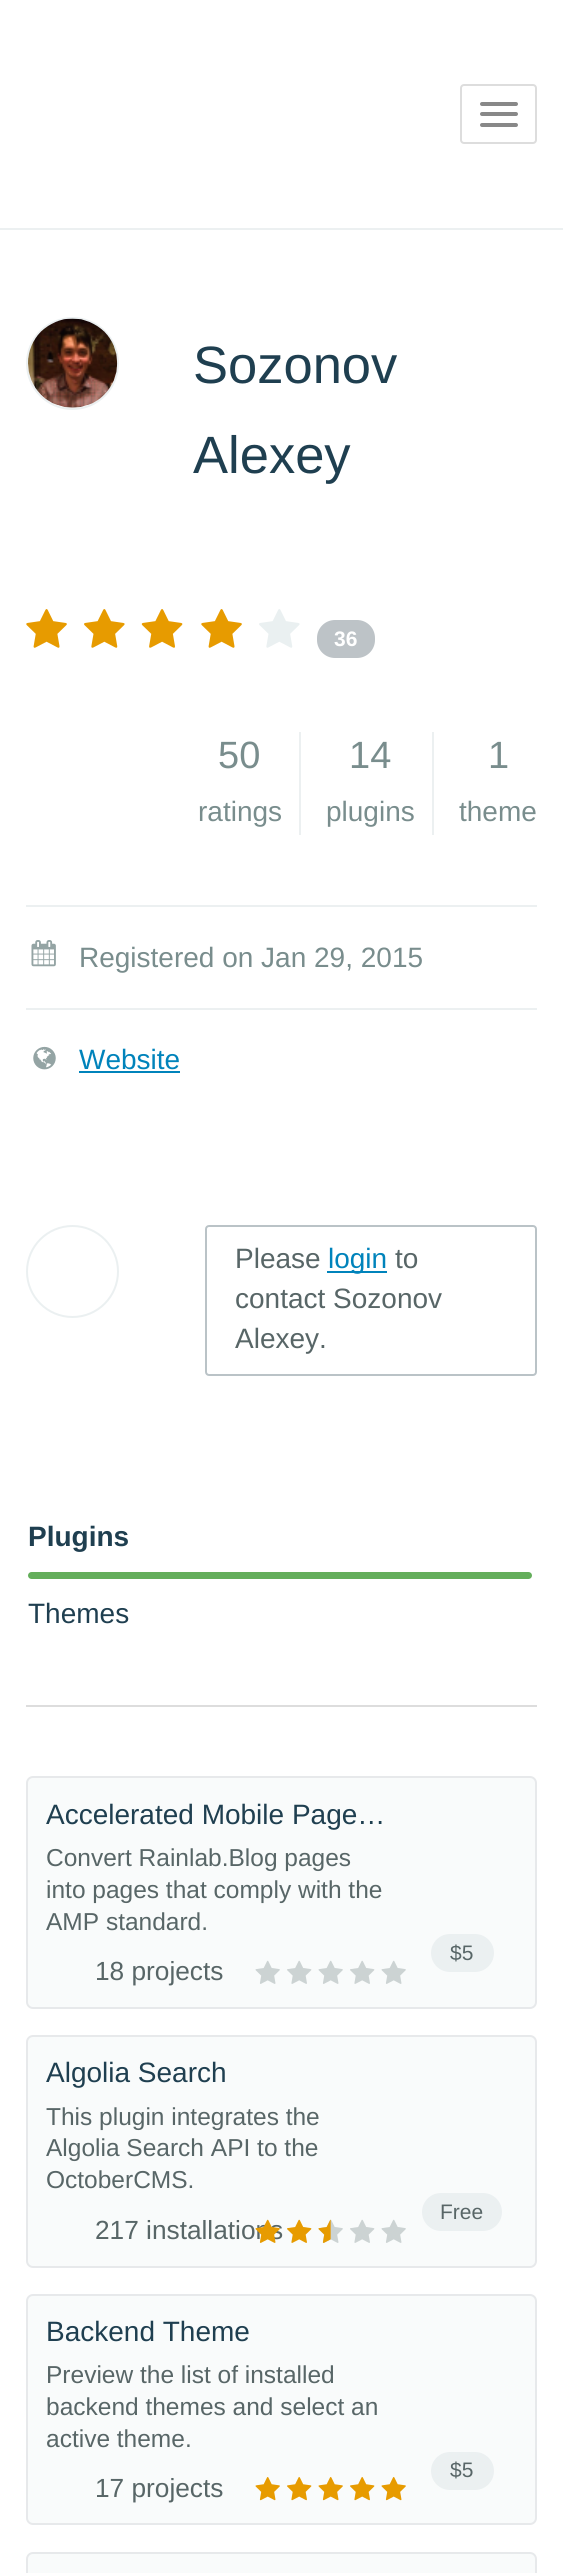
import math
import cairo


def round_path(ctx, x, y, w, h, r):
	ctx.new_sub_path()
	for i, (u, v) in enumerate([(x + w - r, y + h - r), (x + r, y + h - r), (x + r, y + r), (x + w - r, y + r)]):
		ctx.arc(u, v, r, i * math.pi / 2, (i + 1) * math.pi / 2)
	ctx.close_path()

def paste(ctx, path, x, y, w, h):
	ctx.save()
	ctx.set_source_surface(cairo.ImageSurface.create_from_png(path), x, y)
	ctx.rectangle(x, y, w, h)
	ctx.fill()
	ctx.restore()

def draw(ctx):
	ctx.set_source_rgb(1, 1, 1)
	ctx.paint()
	ctx.set_source_rgb(0.925, 0.941, 0.945)
	ctx.rectangle(0, 228, 563, 2)
	ctx.fill()
	round_path(ctx, 461, 85, 75, 58, 3)
	ctx.set_source_rgb(0.867, 0.867, 0.867)
	ctx.stroke()
	ctx.set_source_rgb(0.533, 0.533, 0.533)
	round_path(ctx, 480, 102, 38, 4, 2)
	ctx.fill()
	round_path(ctx, 480, 112, 38, 4, 2)
	ctx.fill()
	round_path(ctx, 480, 123, 38, 4, 2)
	ctx.fill()
	ctx.arc(72.5, 363.5, 45.5, 0, 2 * math.pi)
	ctx.set_source_rgb(0.918, 0.941, 0.945)
	ctx.stroke()
	paste(ctx, 'media/1.png', 28, 318, 90, 90)
	ctx.select_font_face('Liberation Sans')
	ctx.set_font_size(52.5)
	ctx.set_source_rgb(0.122, 0.247, 0.314)
	ctx.move_to(193, 383)
	ctx.show_text('Sozonov')
	ctx.move_to(193, 473)
	ctx.show_text('Alexey')
	paste(ctx, 'media/2.png', 26, 609, 41, 39)
	paste(ctx, 'media/3.png', 84, 609, 41, 39)
	paste(ctx, 'media/4.png', 141, 609, 42, 39)
	paste(ctx, 'media/2.png', 201, 609, 41, 39)
	paste(ctx, 'media/5.png', 259, 609, 41, 39)
	ctx.set_source_rgb(0.741, 0.765, 0.78)
	round_path(ctx, 317, 620, 58, 38, 18)
	ctx.fill()
	ctx.select_font_face('Liberation Sans', cairo.FONT_SLANT_NORMAL, cairo.FONT_WEIGHT_BOLD)
	ctx.set_font_size(21)
	ctx.set_source_rgb(1, 1, 1)
	ctx.move_to(334, 646)
	ctx.show_text('36')
	ctx.set_source_rgb(0.925, 0.941, 0.945)
	ctx.rectangle(299, 732, 2, 103)
	ctx.fill()
	ctx.select_font_face('Liberation Sans')
	ctx.set_font_size(38)
	ctx.set_source_rgb(0.475, 0.553, 0.553)
	ctx.move_to(218, 768)
	ctx.show_text('50')
	ctx.set_font_size(28)
	ctx.move_to(198, 821)
	ctx.show_text('ratings')
	ctx.set_source_rgb(0.925, 0.941, 0.945)
	ctx.rectangle(432, 732, 2, 103)
	ctx.fill()
	ctx.set_font_size(38)
	ctx.set_source_rgb(0.475, 0.553, 0.553)
	ctx.move_to(349, 768)
	ctx.show_text('14')
	ctx.set_font_size(28)
	ctx.move_to(326, 821)
	ctx.show_text('plugins')
	ctx.set_font_size(38)
	ctx.move_to(488, 768)
	ctx.show_text('1')
	ctx.set_font_size(28)
	ctx.move_to(459, 821)
	ctx.show_text('theme')
	ctx.set_source_rgb(0.925, 0.941, 0.945)
	ctx.rectangle(26, 905, 511, 2)
	ctx.fill()
	ctx.rectangle(26, 1008, 511, 2)
	ctx.fill()
	paste(ctx, 'media/6.png', 31, 940, 25, 27)
	ctx.set_source_rgb(0.475, 0.553, 0.553)
	ctx.move_to(79, 967)
	ctx.show_text('Registered on Jan 29, 2015')
	paste(ctx, 'media/7.png', 33, 1046, 23, 24)
	ctx.set_source_rgb(0, 0.514, 0.733)
	ctx.move_to(79, 1069)
	ctx.show_text('Website')
	ctx.rectangle(79, 1071, 101, 2)
	ctx.fill()
	ctx.arc(72.5, 1271.5, 45.5, 0, 2 * math.pi)
	ctx.set_source_rgb(0.918, 0.941, 0.945)
	ctx.stroke()
	round_path(ctx, 206, 1226, 330, 149, 3)
	ctx.set_source_rgb(0.729, 0.765, 0.78)
	ctx.stroke()
	ctx.set_source_rgb(0.345, 0.4, 0.404)
	ctx.move_to(235, 1268)
	ctx.show_text('Please')
	ctx.set_source_rgb(0, 0.514, 0.733)
	ctx.rectangle(327, 1271, 60, 2)
	ctx.fill()
	ctx.move_to(328, 1268)
	ctx.show_text('login')
	ctx.set_source_rgb(0.345, 0.4, 0.404)
	for x, y, s in [
		(395, 1268, 'to'),
		(235, 1308, 'contact Sozonov'),
		(235, 1348, 'Alexey.'),
	]:
		ctx.move_to(x, y)
		ctx.show_text(s)
	ctx.set_source_rgb(0.867, 0.867, 0.867)
	ctx.rectangle(26, 1705, 511, 2)
	ctx.fill()
	ctx.select_font_face('Liberation Sans', cairo.FONT_SLANT_NORMAL, cairo.FONT_WEIGHT_BOLD)
	ctx.set_source_rgb(0.122, 0.247, 0.314)
	ctx.move_to(28, 1546)
	ctx.show_text('Plugins')
	ctx.set_source_rgb(0.392, 0.682, 0.357)
	round_path(ctx, 28, 1572, 504, 7, 3.5)
	ctx.fill()
	ctx.select_font_face('Liberation Sans')
	ctx.set_source_rgb(0.122, 0.247, 0.314)
	ctx.move_to(28, 1623)
	ctx.show_text('Themes')
	ctx.set_source_rgb(0.976, 0.984, 0.984)
	round_path(ctx, 27, 1777, 509, 231, 6)
	ctx.fill_preserve()
	ctx.set_source_rgb(0.906, 0.914, 0.918)
	ctx.stroke()
	ctx.set_source_rgb(0.122, 0.247, 0.314)
	ctx.move_to(46, 1824)
	ctx.show_text('Accelerated Mobile Page…')
	ctx.set_font_size(24.5)
	ctx.set_source_rgb(0.345, 0.4, 0.404)
	for x, y, s in [
		(46, 1866, 'Convert Rainlab.Blog pages'),
		(46, 1898, 'into pages that comply with the'),
		(46, 1930, 'AMP standard.'),
	]:
		ctx.move_to(x, y)
		ctx.show_text(s)
	ctx.set_source_rgb(0.918, 0.941, 0.945)
	round_path(ctx, 431, 1934, 63, 38, 19)
	ctx.fill()
	ctx.set_font_size(21)
	ctx.set_source_rgb(0.345, 0.4, 0.404)
	ctx.move_to(450, 1960)
	ctx.show_text('$5')
	ctx.set_font_size(26.25)
	ctx.move_to(95, 1980)
	ctx.show_text('18 projects')
	paste(ctx, 'media/8.png', 255, 1960, 25, 24)
	paste(ctx, 'media/9.png', 287, 1960, 25, 24)
	paste(ctx, 'media/8.png', 318, 1960, 25, 24)
	paste(ctx, 'media/9.png', 350, 1960, 25, 24)
	paste(ctx, 'media/8.png', 381, 1960, 25, 24)
	ctx.set_source_rgb(0.976, 0.984, 0.984)
	round_path(ctx, 27, 2036, 509, 231, 6)
	ctx.fill_preserve()
	ctx.set_source_rgb(0.906, 0.914, 0.918)
	ctx.stroke()
	ctx.set_font_size(28)
	ctx.set_source_rgb(0.122, 0.247, 0.314)
	ctx.move_to(46, 2082)
	ctx.show_text('Algolia Search')
	ctx.set_font_size(24.5)
	ctx.set_source_rgb(0.345, 0.4, 0.404)
	for x, y, s in [
		(46, 2125, 'This plugin integrates the'),
		(46, 2156, 'Algolia Search API to the'),
		(46, 2188, 'OctoberCMS.'),
	]:
		ctx.move_to(x, y)
		ctx.show_text(s)
	ctx.set_source_rgb(0.918, 0.941, 0.945)
	round_path(ctx, 422, 2193, 80, 38, 19)
	ctx.fill()
	ctx.set_font_size(21)
	ctx.set_source_rgb(0.345, 0.4, 0.404)
	ctx.move_to(440, 2219)
	ctx.show_text('Free')
	ctx.set_font_size(26.25)
	ctx.move_to(95, 2239)
	ctx.show_text('217 installations')
	paste(ctx, 'media/10.png', 255, 2219, 25, 24)
	paste(ctx, 'media/11.png', 287, 2219, 25, 24)
	paste(ctx, 'media/8.png', 318, 2219, 25, 24)
	paste(ctx, 'media/12.png', 318, 2219, 13, 24)
	paste(ctx, 'media/9.png', 350, 2219, 25, 24)
	paste(ctx, 'media/8.png', 381, 2219, 25, 24)
	ctx.set_source_rgb(0.976, 0.984, 0.984)
	round_path(ctx, 27, 2295, 509, 229, 6)
	ctx.fill_preserve()
	ctx.set_source_rgb(0.906, 0.914, 0.918)
	ctx.stroke()
	ctx.set_font_size(28)
	ctx.set_source_rgb(0.122, 0.247, 0.314)
	ctx.move_to(46, 2341)
	ctx.show_text('Backend Theme')
	ctx.set_font_size(24.5)
	ctx.set_source_rgb(0.345, 0.4, 0.404)
	for x, y, s in [
		(46, 2383, 'Preview the list of installed'),
		(46, 2415, 'backend themes and select an'),
		(46, 2447, 'active theme.'),
	]:
		ctx.move_to(x, y)
		ctx.show_text(s)
	ctx.set_source_rgb(0.918, 0.941, 0.945)
	round_path(ctx, 431, 2452, 63, 38, 19)
	ctx.fill()
	ctx.set_font_size(21)
	ctx.set_source_rgb(0.345, 0.4, 0.404)
	ctx.move_to(450, 2477)
	ctx.show_text('$5')
	ctx.set_font_size(26.25)
	ctx.move_to(95, 2497)
	ctx.show_text('17 projects')
	paste(ctx, 'media/13.png', 255, 2477, 25, 24)
	paste(ctx, 'media/14.png', 287, 2477, 25, 24)
	paste(ctx, 'media/13.png', 318, 2477, 25, 24)
	paste(ctx, 'media/14.png', 350, 2477, 25, 24)
	paste(ctx, 'media/13.png', 381, 2477, 25, 24)
	ctx.set_source_rgb(0.976, 0.984, 0.984)
	round_path(ctx, 27, 2553, 509, 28, 6)
	ctx.fill_preserve()
	ctx.set_source_rgb(0.906, 0.914, 0.918)
	ctx.stroke()


surface = cairo.ImageSurface(cairo.FORMAT_RGB24, 563, 2573)
ctx = cairo.Context(surface)
options = cairo.FontOptions()
options.set_hint_metrics(cairo.HINT_METRICS_OFF)
options.set_hint_style(cairo.HINT_STYLE_NONE)
ctx.set_font_options(options)
ctx.set_miter_limit(4)
draw(ctx)
surface.write_to_png('image.png')
